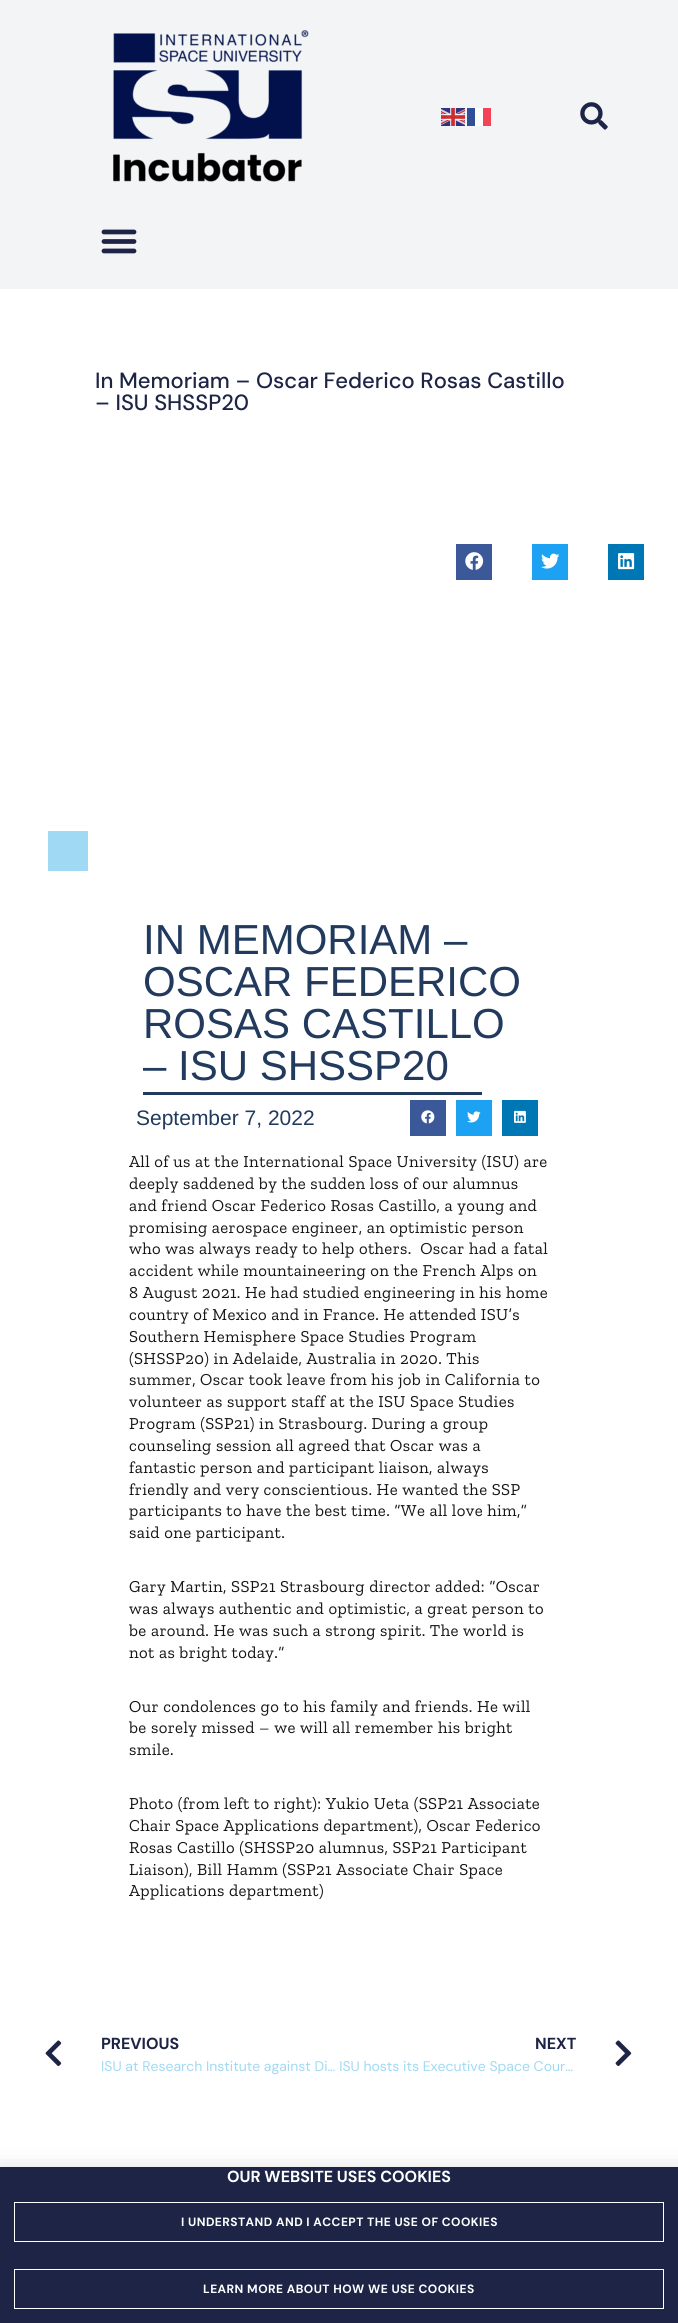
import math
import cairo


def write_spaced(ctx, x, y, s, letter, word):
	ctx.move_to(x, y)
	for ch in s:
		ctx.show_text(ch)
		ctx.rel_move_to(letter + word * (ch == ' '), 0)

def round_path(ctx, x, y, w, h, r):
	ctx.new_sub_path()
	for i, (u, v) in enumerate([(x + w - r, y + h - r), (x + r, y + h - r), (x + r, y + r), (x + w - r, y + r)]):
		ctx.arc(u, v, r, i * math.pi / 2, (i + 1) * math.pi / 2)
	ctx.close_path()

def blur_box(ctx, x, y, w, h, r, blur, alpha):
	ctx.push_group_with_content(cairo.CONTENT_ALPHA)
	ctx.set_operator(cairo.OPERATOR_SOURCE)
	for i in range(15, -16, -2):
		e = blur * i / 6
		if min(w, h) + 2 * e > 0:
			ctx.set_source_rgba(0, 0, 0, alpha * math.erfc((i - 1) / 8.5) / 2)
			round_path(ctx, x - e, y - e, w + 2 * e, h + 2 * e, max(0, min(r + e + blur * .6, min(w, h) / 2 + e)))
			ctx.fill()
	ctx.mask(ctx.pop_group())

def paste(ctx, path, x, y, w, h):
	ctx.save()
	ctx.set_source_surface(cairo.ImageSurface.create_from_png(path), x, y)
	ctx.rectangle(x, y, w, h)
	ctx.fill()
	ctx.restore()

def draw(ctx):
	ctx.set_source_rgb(1, 1, 1)
	ctx.paint()
	ctx.set_source_rgb(0.953, 0.957, 0.961)
	ctx.rectangle(0, 0, 678, 289)
	ctx.fill()
	paste(ctx, 'media/1.png', 113, 30, 196, 152)
	paste(ctx, 'media/2.png', 441, 108, 24, 18)
	ctx.set_source_rgb(0.192, 0.31, 0.592)
	ctx.rectangle(467, 108, 8, 18)
	ctx.fill()
	ctx.set_source_rgb(0.992, 0.992, 0.992)
	ctx.rectangle(475, 108, 8, 18)
	ctx.fill()
	ctx.set_source_rgb(0.953, 0.267, 0.341)
	ctx.rectangle(483, 108, 8, 18)
	ctx.fill()
	paste(ctx, 'media/3.png', 580, 102, 28, 28)
	paste(ctx, 'media/4.png', 101, 229, 36, 25)
	ctx.select_font_face('DM Sans Medium')
	ctx.set_font_size(22)
	ctx.set_source_rgb(0.114, 0.141, 0.271)
	ctx.move_to(95, 388)
	ctx.show_text('In Memoriam – Oscar Federico Rosas Castillo')
	ctx.move_to(95, 410)
	ctx.show_text('– ISU SHSSP20')
	ctx.set_source_rgb(0.231, 0.349, 0.596)
	ctx.rectangle(456, 544, 36, 36)
	ctx.fill()
	paste(ctx, 'media/5.png', 465, 552, 19, 18)
	ctx.set_source_rgb(0.114, 0.631, 0.949)
	ctx.rectangle(532, 544, 36, 36)
	ctx.fill()
	paste(ctx, 'media/6.png', 541, 553, 19, 16)
	ctx.set_source_rgb(0, 0.467, 0.71)
	ctx.rectangle(608, 544, 36, 36)
	ctx.fill()
	paste(ctx, 'media/7.png', 618, 553, 17, 17)
	ctx.set_source_rgb(0.627, 0.851, 0.957)
	ctx.rectangle(48, 831, 40, 40)
	ctx.fill()
	ctx.select_font_face('Liberation Sans')
	ctx.set_font_size(42)
	ctx.set_source_rgb(0.129, 0.227, 0.365)
	for x, y, s in [
		(143, 954, 'IN MEMORIAM –'),
		(143, 996, 'OSCAR FEDERICO'),
		(143, 1038, 'ROSAS CASTILLO'),
		(143, 1080, '– ISU SHSSP20'),
	]:
		ctx.move_to(x, y)
		ctx.show_text(s)
	ctx.rectangle(143, 1092, 339, 3)
	ctx.fill()
	ctx.set_font_size(21)
	ctx.move_to(136, 1125)
	ctx.show_text('September 7, 2022')
	ctx.set_source_rgb(0.231, 0.349, 0.596)
	ctx.rectangle(410, 1100, 36, 36)
	ctx.fill()
	paste(ctx, 'media/8.png', 421, 1110, 14, 14)
	ctx.set_source_rgb(0.114, 0.631, 0.949)
	ctx.rectangle(456, 1100, 36, 36)
	ctx.fill()
	paste(ctx, 'media/9.png', 467, 1111, 14, 12)
	ctx.set_source_rgb(0, 0.467, 0.71)
	ctx.rectangle(502, 1100, 36, 36)
	ctx.fill()
	paste(ctx, 'media/10.png', 514, 1110, 12, 13)
	ctx.select_font_face('Zilla Slab')
	ctx.set_font_size(16.8)
	ctx.set_source_rgb(0.09, 0.082, 0.082)
	for x, y, s in [
		(129, 1167, 'All of us at the International Space University (ISU) are'),
		(129, 1189, 'deeply saddened by the sudden loss of our alumnus'),
		(129, 1211, 'and friend Oscar Federico Rosas Castillo, a young and'),
		(129, 1233, 'promising aerospace engineer, an optimistic person'),
		(129, 1254, 'who was always ready to help others.  Oscar had a fatal'),
		(129, 1276, 'accident while mountaineering on the French Alps on'),
		(129, 1298, '8 August 2021. He had studied engineering in his home'),
		(129, 1320, 'country of Mexico and in France. He attended ISU’s'),
		(129, 1342, 'Southern Hemisphere Space Studies Program'),
		(129, 1364, '(SHSSP20) in Adelaide, Australia in 2020. This'),
		(129, 1385, 'summer, Oscar took leave from his job in California to'),
		(129, 1407, 'volunteer as support staff at the ISU Space Studies'),
		(129, 1429, 'Program (SSP21) in Strasbourg. During a group'),
		(129, 1451, 'counseling session all agreed that Oscar was a'),
		(129, 1473, 'fantastic person and participant liaison, always'),
		(129, 1495, 'friendly and very conscientious. He wanted the SSP'),
		(129, 1516, 'participants to have the best time. “We all love him,”'),
		(129, 1538, 'said one participant.'),
		(129, 1592, 'Gary Martin, SSP21 Strasbourg director added: “Oscar'),
		(129, 1614, 'was always authentic and optimistic, a great person to'),
		(129, 1636, 'be around. He was such a strong spirit. The world is'),
		(129, 1658, 'not as bright today.”'),
		(129, 1712, 'Our condolences go to his family and friends. He will'),
		(129, 1733, 'be sorely missed – we will all remember his bright'),
		(129, 1755, 'smile.'),
		(129, 1809, 'Photo (from left to right): Yukio Ueta (SSP21 Associate'),
		(129, 1831, 'Chair Space Applications department), Oscar Federico'),
		(129, 1853, 'Rosas Castillo (SHSSP20 alumnus, SSP21 Participant'),
		(129, 1875, 'Liaison), Bill Hamm (SSP21 Associate Chair Space'),
		(129, 1896, 'Applications department)'),
	]:
		write_spaced(ctx, x, y, s, 0.4, 0)
	paste(ctx, 'media/11.png', 45, 2040, 17, 26)
	ctx.select_font_face('DM Sans', cairo.FONT_SLANT_NORMAL, cairo.FONT_WEIGHT_BOLD)
	ctx.set_font_size(16)
	ctx.set_source_rgb(0.114, 0.141, 0.271)
	ctx.move_to(101, 2049)
	ctx.show_text('PREVIOUS')
	ctx.select_font_face('DM Sans')
	ctx.set_font_size(14)
	ctx.set_source_rgb(0.627, 0.851, 0.957)
	ctx.move_to(101, 2071)
	ctx.show_text('ISU at Research Institute against Di… ISU hosts its Executive Space Cour…')
	ctx.select_font_face('DM Sans', cairo.FONT_SLANT_NORMAL, cairo.FONT_WEIGHT_BOLD)
	ctx.set_font_size(16)
	ctx.set_source_rgb(0.114, 0.141, 0.271)
	ctx.move_to(535, 2049)
	ctx.show_text('NEXT')
	paste(ctx, 'media/12.png', 615, 2040, 17, 26)
	ctx.set_source_rgb(0, 0, 0)
	blur_box(ctx, -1, 2172, 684, 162, 0, 11.5, 0.2)
	ctx.set_source_rgb(0.114, 0.141, 0.271)
	ctx.rectangle(0, 2167, 678, 156)
	ctx.fill()
	ctx.set_source_rgb(1, 1, 1)
	ctx.move_to(227, 2182)
	ctx.show_text('OUR WEBSITE USES COOKIES')
	ctx.rectangle(14.5, 2202.5, 649, 39)
	ctx.set_line_width(1)
	ctx.stroke()
	ctx.set_font_size(12)
	write_spaced(ctx, 181, 2226, 'I UNDERSTAND AND I ACCEPT THE USE OF COOKIES', 0.45, 0)
	ctx.rectangle(14.5, 2269.5, 649, 39)
	ctx.stroke()
	write_spaced(ctx, 203, 2293, 'LEARN MORE ABOUT HOW WE USE COOKIES', 0.45, 0)


surface = cairo.ImageSurface(cairo.FORMAT_RGB24, 678, 2323)
ctx = cairo.Context(surface)
options = cairo.FontOptions()
options.set_hint_metrics(cairo.HINT_METRICS_OFF)
options.set_hint_style(cairo.HINT_STYLE_NONE)
ctx.set_font_options(options)
ctx.set_miter_limit(4)
draw(ctx)
surface.write_to_png('image.png')
